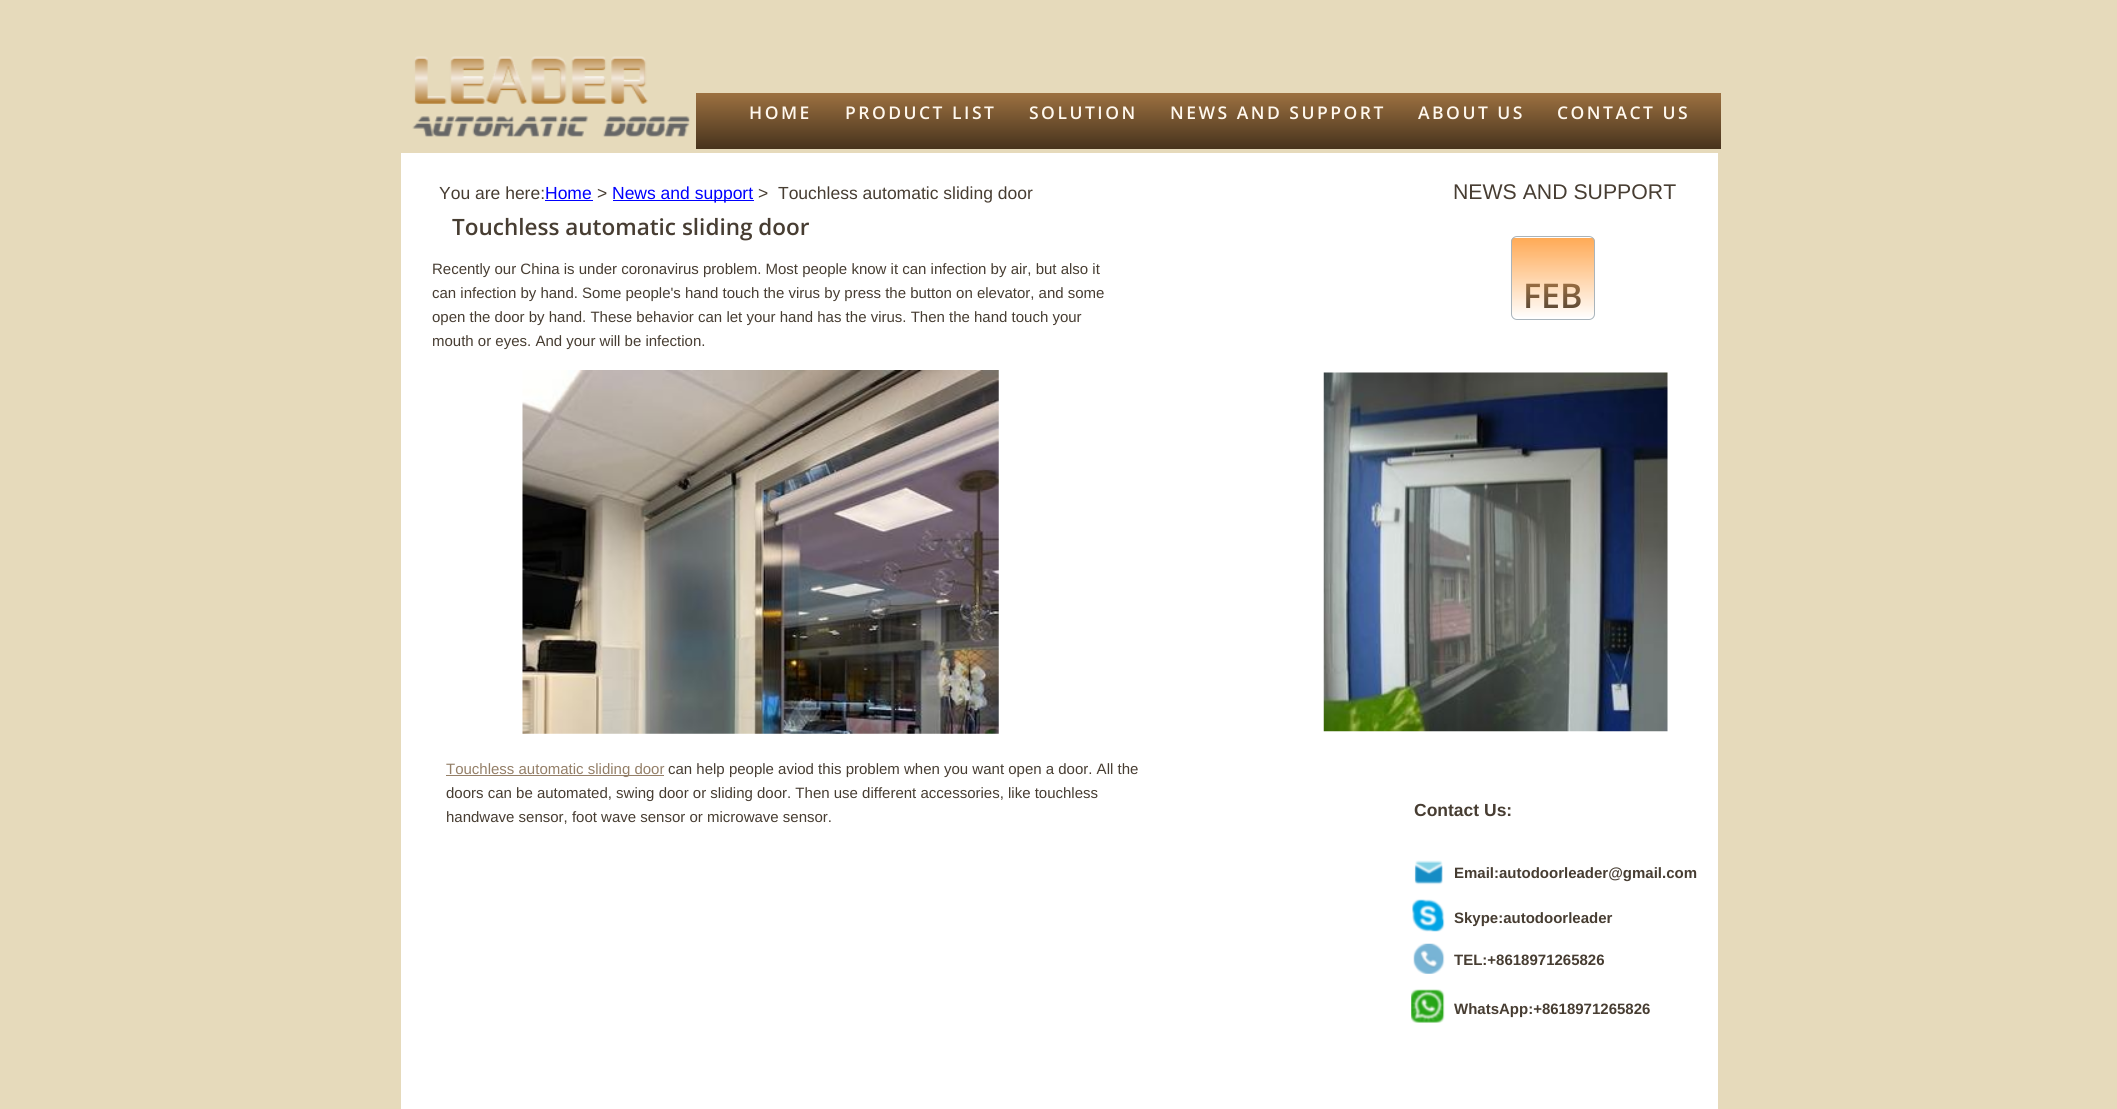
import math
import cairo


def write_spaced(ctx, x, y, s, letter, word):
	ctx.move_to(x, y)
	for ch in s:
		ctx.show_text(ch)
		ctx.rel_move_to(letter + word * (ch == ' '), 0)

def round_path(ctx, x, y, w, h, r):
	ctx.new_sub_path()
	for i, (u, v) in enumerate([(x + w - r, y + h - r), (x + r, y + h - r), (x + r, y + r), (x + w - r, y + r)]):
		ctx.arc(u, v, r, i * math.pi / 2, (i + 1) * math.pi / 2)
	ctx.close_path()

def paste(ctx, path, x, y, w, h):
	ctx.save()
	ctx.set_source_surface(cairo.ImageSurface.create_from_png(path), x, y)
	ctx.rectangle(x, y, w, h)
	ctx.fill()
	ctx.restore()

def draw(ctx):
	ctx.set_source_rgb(0.902, 0.855, 0.733)
	ctx.paint()
	ctx.set_source_rgb(1, 1, 1)
	ctx.rectangle(401, 153, 1317, 956)
	ctx.fill()
	paste(ctx, 'media/1.png', 412, 56, 278, 81)
	gradient = cairo.LinearGradient(1209, 92, 1209, 149)
	gradient.add_color_stop_rgba(0, 0.62, 0.447, 0.255, 1)
	gradient.add_color_stop_rgba(1, 0.278, 0.2, 0.114, 1)
	ctx.set_source(gradient)
	ctx.rectangle(696, 93, 1025, 56)
	ctx.fill()
	ctx.select_font_face('Open Sans SemiBold')
	ctx.set_font_size(17.5)
	ctx.set_source_rgb(1, 0.969, 0.933)
	for x, y, s in [
		(749, 119, 'HOME'),
		(845, 119, 'PRODUCT LIST'),
		(1029, 119, 'SOLUTION'),
		(1170, 119, 'NEWS AND SUPPORT'),
		(1418, 119, 'ABOUT US'),
		(1557, 119, 'CONTACT US'),
	]:
		write_spaced(ctx, x, y, s, 2.5, 0)
	ctx.select_font_face('Liberation Sans')
	ctx.set_source_rgb(0.278, 0.239, 0.196)
	ctx.move_to(439, 199)
	ctx.show_text('You are here:')
	ctx.set_source_rgb(0, 0, 1)
	ctx.move_to(545, 199)
	ctx.show_text('Home')
	ctx.rectangle(545, 200, 48, 1)
	ctx.fill()
	ctx.set_source_rgb(0.278, 0.239, 0.196)
	ctx.move_to(597, 199)
	ctx.show_text('>')
	ctx.set_source_rgb(0, 0, 1)
	ctx.rectangle(613, 200, 141, 1)
	ctx.fill()
	ctx.move_to(612, 199)
	ctx.show_text('News and support')
	ctx.set_source_rgb(0.278, 0.239, 0.196)
	ctx.move_to(758, 199)
	ctx.show_text('>  Touchless automatic sliding door')
	ctx.set_font_size(21.25)
	ctx.move_to(1453, 199)
	ctx.show_text('NEWS AND SUPPORT')
	ctx.select_font_face('Open Sans SemiBold')
	ctx.set_font_size(22.5)
	ctx.move_to(452, 235)
	ctx.show_text('Touchless automatic sliding door')
	ctx.select_font_face('Liberation Sans')
	ctx.set_font_size(15)
	for x, y, s in [
		(432, 274, 'Recently our China is under coronavirus problem. Most people know it can infection by air, but also it'),
		(432, 298, 'can infection by hand. Some people\'s hand touch the virus by press the button on elevator, and some'),
		(432, 322, 'open the door by hand. These behavior can let your hand has the virus. Then the hand touch your'),
		(432, 346, 'mouth or eyes. And your will be infection.'),
	]:
		ctx.move_to(x, y)
		ctx.show_text(s)
	ctx.save()
	round_path(ctx, 1511, 236, 84, 84, 6)
	ctx.clip()
	gradient = cairo.LinearGradient(1553, 156, 1553, 238)
	gradient.add_color_stop_rgba(0, 1, 0.667, 0.337, 1)
	gradient.add_color_stop_rgba(1, 1, 1, 1, 1)
	ctx.set_source(gradient)
	ctx.rectangle(1511, 236, 84, 2)
	ctx.fill()
	ctx.restore()
	ctx.select_font_face('Open Sans SemiBold')
	ctx.set_font_size(34)
	ctx.move_to(1523, 308)
	ctx.show_text('FEB')
	ctx.save()
	round_path(ctx, 1511, 236, 84, 84, 6)
	ctx.clip()
	gradient = cairo.LinearGradient(1553, 238, 1553, 319)
	gradient.add_color_stop_rgba(0, 1, 0.667, 0.337, 1)
	gradient.add_color_stop_rgba(1, 1, 0.667, 0.337, 0)
	ctx.set_source(gradient)
	ctx.rectangle(1511, 238, 84, 79)
	ctx.fill()
	ctx.restore()
	round_path(ctx, 1511.5, 236.5, 83, 83, 5.5)
	ctx.set_source_rgb(0.663, 0.706, 0.733)
	ctx.set_line_width(1)
	ctx.stroke()
	paste(ctx, 'media/2.png', 522, 370, 477, 364)
	paste(ctx, 'media/3.png', 1323, 372, 345, 360)
	ctx.set_source_rgb(0.58, 0.498, 0.408)
	ctx.rectangle(446, 775, 218, 1)
	ctx.fill()
	ctx.select_font_face('Liberation Sans')
	ctx.set_font_size(15)
	ctx.move_to(446, 774)
	ctx.show_text('Touchless automatic sliding door')
	ctx.set_source_rgb(0.278, 0.239, 0.196)
	for x, y, s in [
		(668, 774, 'can help people aviod this problem when you want open a door. All the'),
		(446, 798, 'doors can be automated, swing door or sliding door. Then use different accessories, like touchless'),
		(446, 822, 'handwave sensor, foot wave sensor or microwave sensor.'),
	]:
		ctx.move_to(x, y)
		ctx.show_text(s)
	ctx.select_font_face('Liberation Sans', cairo.FONT_SLANT_NORMAL, cairo.FONT_WEIGHT_BOLD)
	ctx.set_font_size(17.5)
	ctx.move_to(1414, 816)
	ctx.show_text('Contact Us:')
	paste(ctx, 'media/4.png', 1414, 860, 29, 25)
	ctx.set_font_size(15)
	ctx.move_to(1454, 878)
	ctx.show_text('Email:autodoorleader@gmail.com')
	paste(ctx, 'media/5.png', 1412, 899, 33, 33)
	ctx.move_to(1454, 923)
	ctx.show_text('Skype:autodoorleader')
	paste(ctx, 'media/6.png', 1413, 943, 32, 31)
	ctx.move_to(1454, 965)
	ctx.show_text('TEL:+8618971265826')
	paste(ctx, 'media/7.png', 1411, 989, 34, 34)
	ctx.move_to(1454, 1014)
	ctx.show_text('WhatsApp:+8618971265826')


surface = cairo.ImageSurface(cairo.FORMAT_RGB24, 2117, 1109)
ctx = cairo.Context(surface)
options = cairo.FontOptions()
options.set_hint_metrics(cairo.HINT_METRICS_OFF)
options.set_hint_style(cairo.HINT_STYLE_NONE)
ctx.set_font_options(options)
ctx.set_miter_limit(4)
draw(ctx)
surface.write_to_png('image.png')
